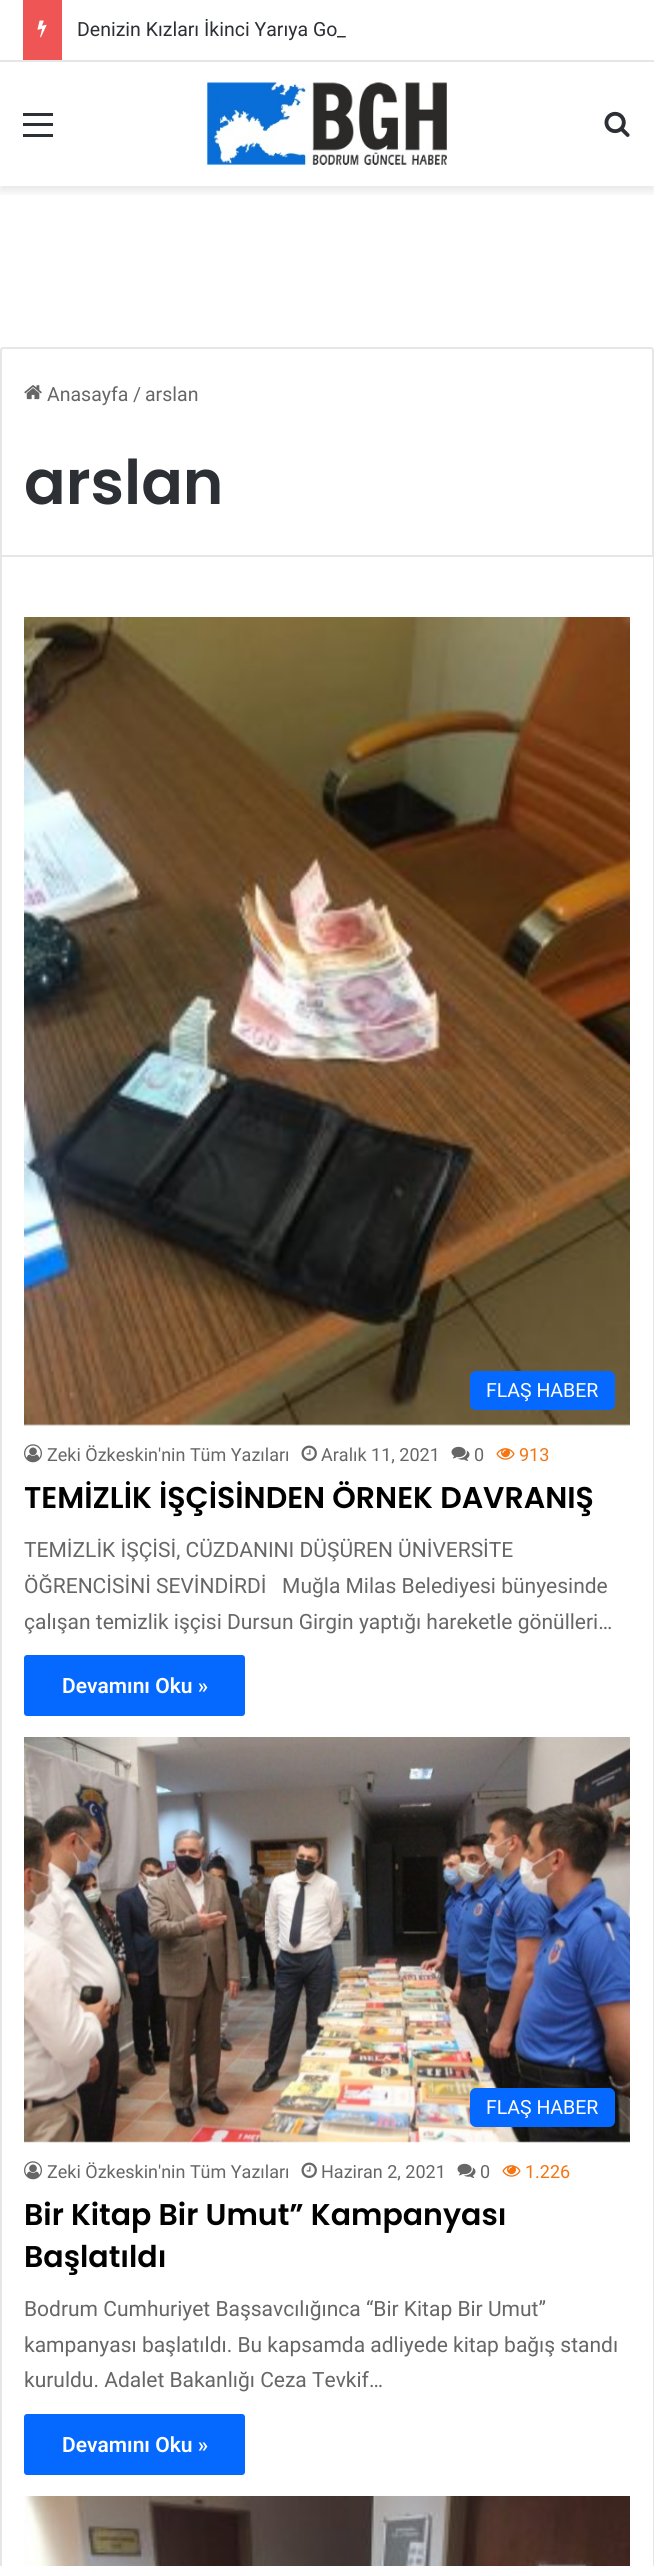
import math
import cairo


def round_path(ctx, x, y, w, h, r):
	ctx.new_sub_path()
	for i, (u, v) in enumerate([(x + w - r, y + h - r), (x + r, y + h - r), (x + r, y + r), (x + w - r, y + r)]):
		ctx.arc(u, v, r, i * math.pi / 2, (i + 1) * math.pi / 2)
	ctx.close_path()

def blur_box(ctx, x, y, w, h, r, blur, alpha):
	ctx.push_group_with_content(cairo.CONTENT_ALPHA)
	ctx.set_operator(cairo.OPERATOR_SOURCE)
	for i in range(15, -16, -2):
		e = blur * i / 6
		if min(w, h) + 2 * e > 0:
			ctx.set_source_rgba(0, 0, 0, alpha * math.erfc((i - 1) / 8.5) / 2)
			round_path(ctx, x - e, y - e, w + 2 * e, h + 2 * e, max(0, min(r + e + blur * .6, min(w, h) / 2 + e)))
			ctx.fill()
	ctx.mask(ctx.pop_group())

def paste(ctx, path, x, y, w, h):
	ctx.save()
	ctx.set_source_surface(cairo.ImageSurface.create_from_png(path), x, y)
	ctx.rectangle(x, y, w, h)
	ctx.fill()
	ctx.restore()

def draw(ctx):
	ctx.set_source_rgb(1, 1, 1)
	ctx.paint()
	ctx.save()
	ctx.rectangle(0, 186, 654, 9)
	ctx.clip()
	ctx.set_source_rgb(0, 0, 0)
	blur_box(ctx, 0, 66, 654, 125, 0, 5, 0.1)
	ctx.restore()
	ctx.set_source_rgb(0.902, 0.902, 0.902)
	ctx.rectangle(0, 60, 654, 2)
	ctx.fill()
	ctx.set_source_rgb(0.941, 0.333, 0.333)
	ctx.rectangle(23, 0, 39, 60)
	ctx.fill()
	paste(ctx, 'media/1.png', 37, 20, 10, 18)
	ctx.select_font_face('Roboto')
	ctx.set_font_size(19.5)
	ctx.set_source_rgb(0.173, 0.184, 0.204)
	ctx.move_to(77, 36)
	ctx.show_text('Denizin Kızları İkinci Yarıya Go')
	ctx.move_to(337, 36)
	ctx.show_text('_')
	ctx.rectangle(23, 123, 30, 3)
	ctx.rectangle(23, 113, 30, 3)
	ctx.rectangle(23, 134, 30, 3)
	ctx.fill()
	paste(ctx, 'media/2.png', 207, 82, 240, 83)
	paste(ctx, 'media/3.png', 604, 111, 26, 26)
	ctx.new_path()
	ctx.move_to(3, 348)
	ctx.line_to(651, 348)
	ctx.curve_to(652, 348, 653, 349, 653, 350)
	ctx.line_to(653, 556)
	ctx.line_to(1, 556)
	ctx.line_to(1, 350)
	ctx.curve_to(1, 349, 2, 348, 3, 348)
	ctx.close_path()
	ctx.set_source_rgb(0.902, 0.902, 0.902)
	ctx.stroke()
	paste(ctx, 'media/4.png', 24, 385, 18, 15)
	ctx.set_source_rgb(0.4, 0.4, 0.4)
	for x, y, s in [
		(47, 401, 'Anasayfa'),
		(133, 401, '/'),
		(145, 401, 'arslan'),
	]:
		ctx.move_to(x, y)
		ctx.show_text(s)
	ctx.select_font_face('Poppins SemiBold')
	ctx.set_font_size(61.5)
	ctx.set_source_rgb(0.173, 0.184, 0.204)
	ctx.move_to(24, 504)
	ctx.show_text('arslan')
	ctx.set_source_rgb(0.902, 0.902, 0.902)
	ctx.rectangle(653, 557, 1, 2009)
	ctx.fill()
	ctx.rectangle(0, 557, 2, 2009)
	ctx.fill()
	paste(ctx, 'media/5.png', 24, 617, 606, 809)
	ctx.set_source_rgb(0.024, 0.412, 1)
	round_path(ctx, 470, 1371, 145, 39, 6)
	ctx.fill()
	ctx.select_font_face('Roboto')
	ctx.set_font_size(19.5)
	ctx.set_source_rgb(1, 1, 1)
	ctx.move_to(486, 1397)
	ctx.show_text('FLAŞ HABER')
	paste(ctx, 'media/6.png', 24, 1444, 18, 19)
	ctx.set_font_size(18)
	ctx.set_source_rgb(0.4, 0.4, 0.4)
	ctx.move_to(47, 1461)
	ctx.show_text('Zeki Özkeskin\'nin Tüm Yazıları')
	paste(ctx, 'media/7.png', 301, 1445, 16, 16)
	ctx.move_to(321, 1461)
	ctx.show_text('Aralık 11, 2021')
	paste(ctx, 'media/8.png', 451, 1446, 19, 15)
	ctx.move_to(474, 1461)
	ctx.show_text('0')
	paste(ctx, 'media/9.png', 496, 1448, 19, 12)
	ctx.set_source_rgb(0.957, 0.459, 0.071)
	ctx.move_to(519, 1461)
	ctx.show_text('913')
	ctx.select_font_face('Poppins SemiBold')
	ctx.set_font_size(30)
	ctx.set_source_rgb(0, 0, 0)
	ctx.move_to(24, 1508)
	ctx.show_text('TEMİZLİK İŞÇİSİNDEN ÖRNEK DAVRANIŞ')
	ctx.select_font_face('Roboto')
	ctx.set_font_size(21)
	ctx.set_source_rgb(0.4, 0.4, 0.4)
	for x, y, s in [
		(24, 1557, 'TEMİZLİK İŞÇİSİ, CÜZDANINI DÜŞÜREN ÜNİVERSİTE'),
		(24, 1593, 'ÖĞRENCİSİNİ SEVİNDİRDİ   Muğla Milas Belediyesi bünyesinde'),
		(24, 1629, 'çalışan temizlik işçisi Dursun Girgin yaptığı hareketle gönülleri…'),
	]:
		ctx.move_to(x, y)
		ctx.show_text(s)
	ctx.set_source_rgb(0.024, 0.412, 1)
	round_path(ctx, 24, 1655, 221, 61, 3)
	ctx.fill()
	ctx.select_font_face('Roboto SemiBold')
	ctx.set_source_rgb(1, 1, 1)
	ctx.move_to(62, 1693)
	ctx.show_text('Devamını Oku »')
	paste(ctx, 'media/10.png', 24, 1737, 606, 406)
	ctx.set_source_rgb(0.024, 0.412, 1)
	round_path(ctx, 470, 2088, 145, 39, 6)
	ctx.fill()
	ctx.select_font_face('Roboto')
	ctx.set_font_size(19.5)
	ctx.set_source_rgb(1, 1, 1)
	ctx.move_to(486, 2114)
	ctx.show_text('FLAŞ HABER')
	paste(ctx, 'media/6.png', 24, 2161, 18, 19)
	ctx.set_font_size(18)
	ctx.set_source_rgb(0.4, 0.4, 0.4)
	ctx.move_to(47, 2178)
	ctx.show_text('Zeki Özkeskin\'nin Tüm Yazıları')
	paste(ctx, 'media/7.png', 301, 2162, 16, 16)
	ctx.move_to(321, 2178)
	ctx.show_text('Haziran 2, 2021')
	paste(ctx, 'media/8.png', 457, 2163, 19, 15)
	ctx.move_to(480, 2178)
	ctx.show_text('0')
	paste(ctx, 'media/9.png', 502, 2165, 19, 12)
	ctx.set_source_rgb(0.957, 0.459, 0.071)
	ctx.move_to(525, 2178)
	ctx.show_text('1.226')
	ctx.select_font_face('Poppins SemiBold')
	ctx.set_font_size(30)
	ctx.set_source_rgb(0, 0, 0)
	ctx.move_to(24, 2225)
	ctx.show_text('Bir Kitap Bir Umut” Kampanyası')
	ctx.move_to(24, 2267)
	ctx.show_text('Başlatıldı')
	ctx.select_font_face('Roboto')
	ctx.set_font_size(21)
	ctx.set_source_rgb(0.4, 0.4, 0.4)
	for x, y, s in [
		(24, 2316, 'Bodrum Cumhuriyet Başsavcılığınca “Bir Kitap Bir Umut”'),
		(24, 2352, 'kampanyası başlatıldı. Bu kapsamda adliyede kitap bağış standı'),
		(24, 2387, 'kuruldu. Adalet Bakanlığı Ceza Tevkif…'),
	]:
		ctx.move_to(x, y)
		ctx.show_text(s)
	ctx.set_source_rgb(0.024, 0.412, 1)
	round_path(ctx, 24, 2414, 221, 61, 3)
	ctx.fill()
	ctx.select_font_face('Roboto SemiBold')
	ctx.set_source_rgb(1, 1, 1)
	ctx.move_to(62, 2452)
	ctx.show_text('Devamını Oku »')
	paste(ctx, 'media/11.png', 24, 2496, 606, 70)


surface = cairo.ImageSurface(cairo.FORMAT_RGB24, 654, 2566)
ctx = cairo.Context(surface)
options = cairo.FontOptions()
options.set_hint_metrics(cairo.HINT_METRICS_OFF)
options.set_hint_style(cairo.HINT_STYLE_NONE)
ctx.set_font_options(options)
ctx.set_miter_limit(4)
draw(ctx)
surface.write_to_png('image.png')
